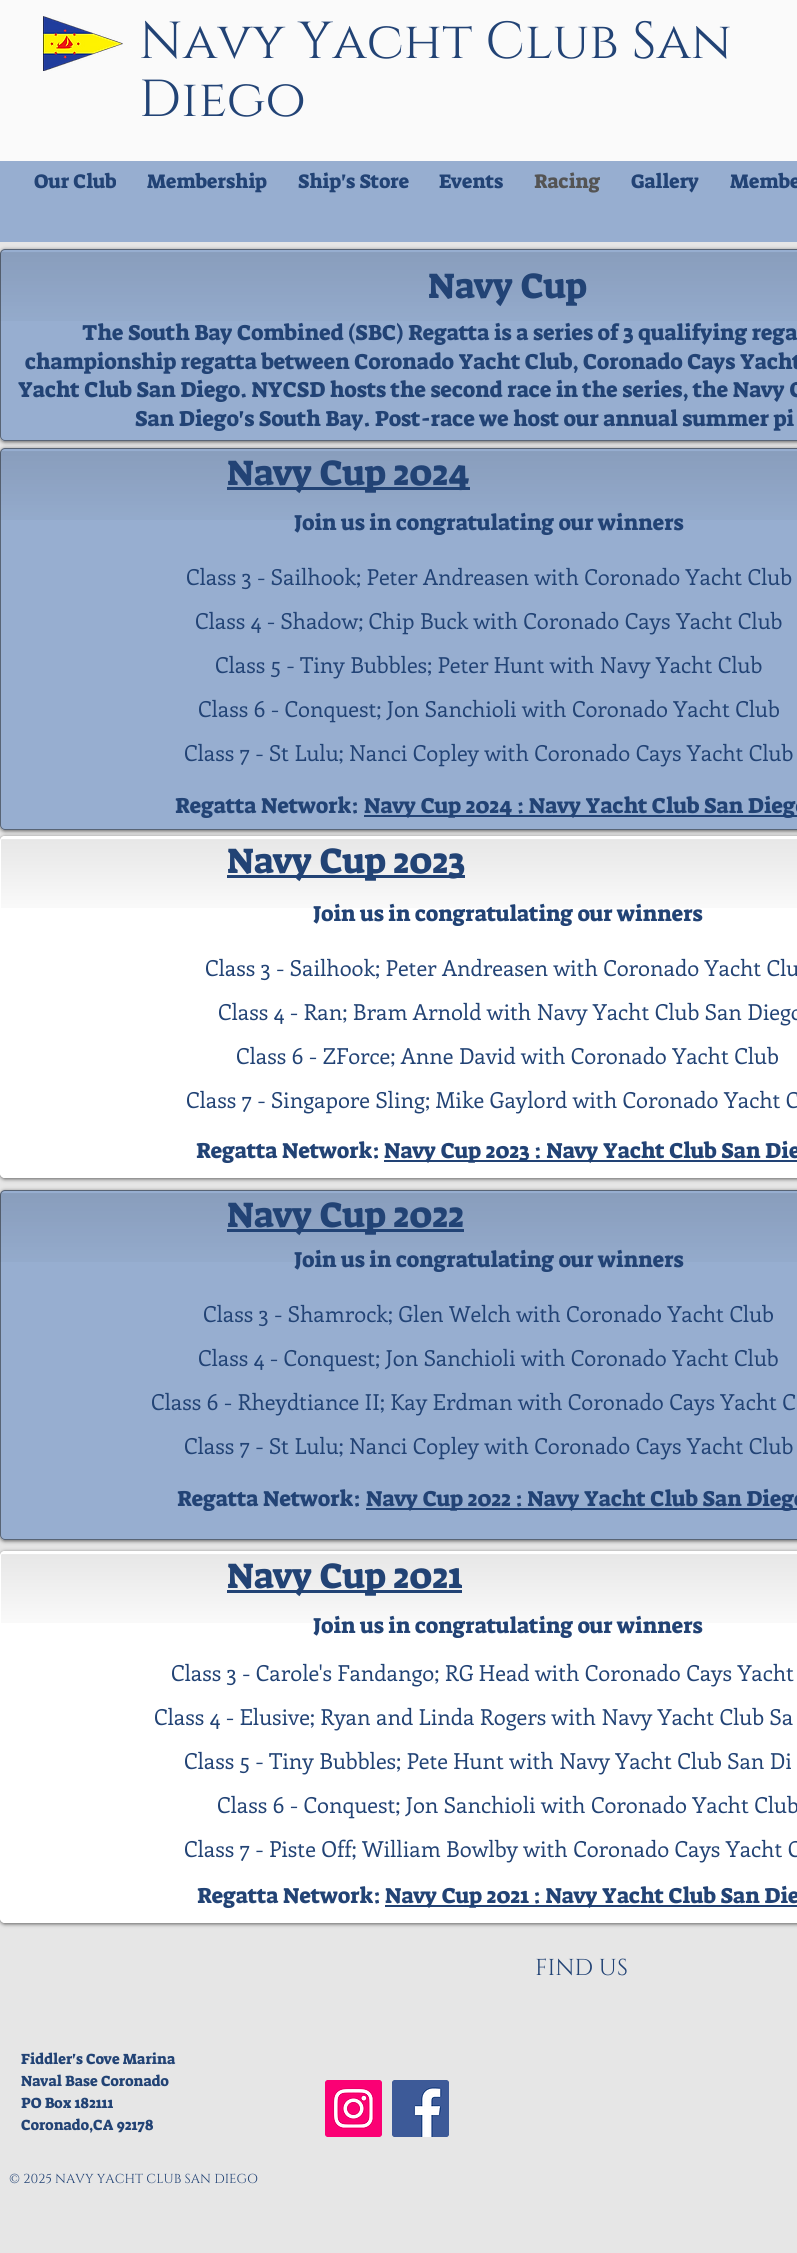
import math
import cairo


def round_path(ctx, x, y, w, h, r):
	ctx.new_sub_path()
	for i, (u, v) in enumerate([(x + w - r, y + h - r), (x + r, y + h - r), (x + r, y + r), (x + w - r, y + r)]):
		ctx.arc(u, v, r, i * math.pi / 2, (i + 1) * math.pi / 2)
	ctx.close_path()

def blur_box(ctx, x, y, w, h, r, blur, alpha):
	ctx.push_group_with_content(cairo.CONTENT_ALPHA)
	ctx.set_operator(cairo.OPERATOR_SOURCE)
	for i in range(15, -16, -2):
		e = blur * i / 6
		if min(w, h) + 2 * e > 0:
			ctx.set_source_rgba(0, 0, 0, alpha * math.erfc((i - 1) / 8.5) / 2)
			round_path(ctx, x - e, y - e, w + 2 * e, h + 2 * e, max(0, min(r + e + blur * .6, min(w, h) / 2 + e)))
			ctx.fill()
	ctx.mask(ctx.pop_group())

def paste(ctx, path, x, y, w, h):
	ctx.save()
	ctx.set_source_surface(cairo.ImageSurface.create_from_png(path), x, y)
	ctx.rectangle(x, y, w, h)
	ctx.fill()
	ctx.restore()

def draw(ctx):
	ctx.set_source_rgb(0.902, 0.902, 0.902)
	ctx.paint()
	ctx.set_source_rgb(0.98, 0.98, 0.98)
	ctx.rectangle(0, 0, 797, 161)
	ctx.fill()
	paste(ctx, 'media/1.png', 43, 16, 80, 55)
	ctx.select_font_face('Cinzel')
	ctx.set_font_size(52)
	ctx.set_source_rgb(0.133, 0.263, 0.459)
	ctx.move_to(139, 58)
	ctx.show_text('Navy Yacht Club San')
	ctx.move_to(139, 116)
	ctx.show_text('Diego')
	ctx.set_source_rgb(0.592, 0.682, 0.816)
	ctx.rectangle(0, 161, 797, 81)
	ctx.fill()
	ctx.select_font_face('Suez One')
	ctx.set_font_size(20)
	ctx.set_source_rgb(0.133, 0.263, 0.459)
	for x, y, s in [
		(34, 188, 'Our Club'),
		(147, 188, 'Membership'),
		(298, 188, 'Ship\'s Store'),
		(439, 188, 'Events'),
	]:
		ctx.move_to(x, y)
		ctx.show_text(s)
	ctx.set_source_rgb(0.329, 0.329, 0.329)
	ctx.move_to(534, 188)
	ctx.show_text('Racing')
	ctx.set_source_rgb(0.133, 0.263, 0.459)
	ctx.move_to(631, 188)
	ctx.show_text('Gallery')
	ctx.move_to(730, 188)
	ctx.show_text('Membe')
	ctx.save()
	ctx.set_fill_rule(cairo.FILL_RULE_EVEN_ODD)
	ctx.new_path()
	ctx.move_to(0, 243)
	ctx.line_to(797, 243)
	ctx.line_to(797, 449)
	ctx.line_to(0, 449)
	ctx.close_path()
	ctx.move_to(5, 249)
	ctx.line_to(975, 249)
	ctx.curve_to(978, 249, 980, 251, 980, 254)
	ctx.line_to(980, 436)
	ctx.curve_to(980, 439, 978, 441, 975, 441)
	ctx.line_to(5, 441)
	ctx.curve_to(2, 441, 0, 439, 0, 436)
	ctx.line_to(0, 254)
	ctx.curve_to(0, 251, 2, 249, 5, 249)
	ctx.close_path()
	ctx.clip()
	ctx.set_source_rgb(0, 0, 0)
	blur_box(ctx, 0, 250, 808, 192, 5, 2, 0.6)
	ctx.restore()
	ctx.set_source_rgba(0.51, 0.624, 0.792, 0.79)
	round_path(ctx, 0, 249, 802, 192, 5)
	ctx.fill()
	paste(ctx, 'media/2.png', 0, 252, 797, 69)
	round_path(ctx, 0.5, 249.5, 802, 191, 4.5)
	ctx.set_source_rgba(0.106, 0.106, 0.106, 0.5)
	ctx.set_line_width(1)
	ctx.stroke()
	ctx.set_font_size(36)
	ctx.set_source_rgb(0.133, 0.263, 0.459)
	ctx.move_to(428, 298)
	ctx.show_text('Navy Cup')
	ctx.set_font_size(22)
	for x, y, s in [
		(82, 340, 'The South Bay Combined (SBC) Regatta is a series of 3 qualifying rega'),
		(25, 369, 'championship regatta between Coronado Yacht Club, Coronado Cays Yacht'),
		(18, 397, 'Yacht Club San Diego. NYCSD hosts the second race in the series, the Navy C'),
		(135, 426, 'San Diego\'s South Bay. Post-race we host our annual summer pi'),
	]:
		ctx.move_to(x, y)
		ctx.show_text(s)
	ctx.save()
	ctx.set_fill_rule(cairo.FILL_RULE_EVEN_ODD)
	ctx.new_path()
	ctx.move_to(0, 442)
	ctx.line_to(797, 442)
	ctx.line_to(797, 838)
	ctx.line_to(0, 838)
	ctx.close_path()
	ctx.move_to(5, 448)
	ctx.line_to(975, 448)
	ctx.curve_to(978, 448, 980, 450, 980, 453)
	ctx.line_to(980, 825)
	ctx.curve_to(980, 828, 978, 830, 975, 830)
	ctx.line_to(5, 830)
	ctx.curve_to(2, 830, 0, 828, 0, 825)
	ctx.line_to(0, 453)
	ctx.curve_to(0, 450, 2, 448, 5, 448)
	ctx.close_path()
	ctx.clip()
	ctx.set_source_rgb(0, 0, 0)
	blur_box(ctx, 0, 449, 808, 382, 5, 2, 0.6)
	ctx.restore()
	ctx.set_source_rgba(0.51, 0.624, 0.792, 0.79)
	round_path(ctx, 0, 448, 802, 382, 5)
	ctx.fill()
	paste(ctx, 'media/2.png', 0, 451, 797, 69)
	round_path(ctx, 0.5, 448.5, 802, 381, 4.5)
	ctx.set_source_rgba(0.106, 0.106, 0.106, 0.5)
	ctx.stroke()
	ctx.set_source_rgb(0.133, 0.263, 0.459)
	ctx.rectangle(227, 487, 243, 3)
	ctx.fill()
	ctx.set_font_size(36)
	ctx.move_to(227, 485)
	ctx.show_text('Navy Cup 2024')
	ctx.set_font_size(22)
	ctx.move_to(294, 530)
	ctx.show_text('Join us in congratulating our winners')
	ctx.select_font_face('Enriqueta')
	for x, y, s in [
		(186, 585, 'Class 3 - Sailhook; Peter Andreasen with Coronado Yacht Club'),
		(195, 629, 'Class 4 - Shadow; Chip Buck with Coronado Cays Yacht Club'),
		(215, 673, 'Class 5 - Tiny Bubbles; Peter Hunt with Navy Yacht Club'),
		(198, 717, 'Class 6 - Conquest; Jon Sanchioli with Coronado Yacht Club'),
		(184, 761, 'Class 7 - St Lulu; Nanci Copley with Coronado Cays Yacht Club'),
	]:
		ctx.move_to(x, y)
		ctx.show_text(s)
	ctx.select_font_face('Suez One')
	ctx.move_to(175, 813)
	ctx.show_text('Regatta Network:')
	ctx.rectangle(364, 815, 433, 2)
	ctx.fill()
	ctx.move_to(364, 813)
	ctx.show_text('Navy Cup 2024 : Navy Yacht Club San Diego')
	ctx.set_source_rgb(0, 0, 0)
	blur_box(ctx, 0, 837, 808, 342, 5, 2, 0.6)
	ctx.set_source_rgb(1, 1, 1)
	round_path(ctx, 0, 836, 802, 342, 5)
	ctx.fill()
	paste(ctx, 'media/3.png', 0, 839, 797, 69)
	round_path(ctx, 0.5, 836.5, 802, 341, 4.5)
	ctx.stroke()
	ctx.set_source_rgb(0.133, 0.263, 0.459)
	ctx.rectangle(227, 875, 238, 3)
	ctx.fill()
	ctx.set_font_size(36)
	ctx.move_to(227, 873)
	ctx.show_text('Navy Cup 2023')
	ctx.set_font_size(22)
	ctx.move_to(313, 921)
	ctx.show_text('Join us in congratulating our winners')
	ctx.select_font_face('Enriqueta')
	for x, y, s in [
		(205, 976, 'Class 3 - Sailhook; Peter Andreasen with Coronado Yacht Clu'),
		(218, 1020, 'Class 4 - Ran; Bram Arnold with Navy Yacht Club San Diego'),
		(236, 1064, 'Class 6 - ZForce; Anne David with Coronado Yacht Club'),
		(186, 1108, 'Class 7 - Singapore Sling; Mike Gaylord with Coronado Yacht C'),
	]:
		ctx.move_to(x, y)
		ctx.show_text(s)
	ctx.select_font_face('Suez One')
	ctx.move_to(196, 1158)
	ctx.show_text('Regatta Network:')
	ctx.rectangle(384, 1160, 413, 2)
	ctx.fill()
	ctx.move_to(384, 1158)
	ctx.show_text('Navy Cup 2023 : Navy Yacht Club San Die')
	ctx.save()
	ctx.set_fill_rule(cairo.FILL_RULE_EVEN_ODD)
	ctx.new_path()
	ctx.move_to(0, 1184)
	ctx.line_to(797, 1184)
	ctx.line_to(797, 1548)
	ctx.line_to(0, 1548)
	ctx.close_path()
	ctx.move_to(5, 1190)
	ctx.line_to(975, 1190)
	ctx.curve_to(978, 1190, 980, 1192, 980, 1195)
	ctx.line_to(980, 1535)
	ctx.curve_to(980, 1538, 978, 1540, 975, 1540)
	ctx.line_to(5, 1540)
	ctx.curve_to(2, 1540, 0, 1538, 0, 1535)
	ctx.line_to(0, 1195)
	ctx.curve_to(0, 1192, 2, 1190, 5, 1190)
	ctx.close_path()
	ctx.clip()
	ctx.set_source_rgb(0, 0, 0)
	blur_box(ctx, 0, 1191, 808, 350, 5, 2, 0.6)
	ctx.restore()
	ctx.set_source_rgba(0.51, 0.624, 0.792, 0.79)
	round_path(ctx, 0, 1190, 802, 350, 5)
	ctx.fill()
	paste(ctx, 'media/2.png', 0, 1193, 797, 69)
	round_path(ctx, 0.5, 1190.5, 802, 349, 4.5)
	ctx.set_source_rgba(0.106, 0.106, 0.106, 0.5)
	ctx.stroke()
	ctx.set_source_rgb(0.133, 0.263, 0.459)
	ctx.rectangle(227, 1229, 237, 3)
	ctx.fill()
	ctx.set_font_size(36)
	ctx.move_to(227, 1227)
	ctx.show_text('Navy Cup 2022')
	ctx.set_font_size(22)
	ctx.move_to(294, 1267)
	ctx.show_text('Join us in congratulating our winners')
	ctx.select_font_face('Enriqueta')
	for x, y, s in [
		(203, 1322, 'Class 3 - Shamrock; Glen Welch with Coronado Yacht Club'),
		(198, 1366, 'Class 4 - Conquest; Jon Sanchioli with Coronado Yacht Club'),
		(151, 1410, 'Class 6 - Rheydtiance II; Kay Erdman with Coronado Cays Yacht C'),
		(184, 1454, 'Class 7 - St Lulu; Nanci Copley with Coronado Cays Yacht Club'),
	]:
		ctx.move_to(x, y)
		ctx.show_text(s)
	ctx.select_font_face('Suez One')
	ctx.move_to(177, 1506)
	ctx.show_text('Regatta Network:')
	ctx.rectangle(366, 1508, 431, 2)
	ctx.fill()
	ctx.move_to(366, 1506)
	ctx.show_text('Navy Cup 2022 : Navy Yacht Club San Diego')
	ctx.set_source_rgb(0, 0, 0)
	blur_box(ctx, 0, 1552, 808, 372, 5, 2, 0.6)
	ctx.set_source_rgb(1, 1, 1)
	round_path(ctx, 0, 1551, 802, 372, 5)
	ctx.fill()
	paste(ctx, 'media/3.png', 0, 1554, 797, 69)
	round_path(ctx, 0.5, 1551.5, 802, 371, 4.5)
	ctx.stroke()
	ctx.set_source_rgb(0.133, 0.263, 0.459)
	ctx.rectangle(227, 1590, 235, 3)
	ctx.fill()
	ctx.set_font_size(36)
	ctx.move_to(227, 1588)
	ctx.show_text('Navy Cup 2021')
	ctx.set_font_size(22)
	ctx.move_to(313, 1633)
	ctx.show_text('Join us in congratulating our winners')
	ctx.select_font_face('Enriqueta')
	for x, y, s in [
		(171, 1681, 'Class 3 - Carole\'s Fandango; RG Head with Coronado Cays Yacht'),
		(154, 1725, 'Class 4 - Elusive; Ryan and Linda Rogers with Navy Yacht Club Sa'),
		(184, 1769, 'Class 5 - Tiny Bubbles; Pete Hunt with Navy Yacht Club San Di'),
		(217, 1813, 'Class 6 - Conquest; Jon Sanchioli with Coronado Yacht Club'),
		(184, 1857, 'Class 7 - Piste Off; William Bowlby with Coronado Cays Yacht C'),
	]:
		ctx.move_to(x, y)
		ctx.show_text(s)
	ctx.select_font_face('Suez One')
	ctx.move_to(197, 1903)
	ctx.show_text('Regatta Network:')
	ctx.rectangle(385, 1905, 412, 2)
	ctx.fill()
	ctx.move_to(385, 1903)
	ctx.show_text('Navy Cup 2021 : Navy Yacht Club San Die')
	ctx.select_font_face('Cinzel')
	ctx.set_font_size(23)
	ctx.move_to(535, 1975)
	ctx.show_text('FIND US')
	ctx.select_font_face('Suez One')
	ctx.set_font_size(15)
	for x, y, s in [
		(21, 2064, 'Fiddler\'s Cove Marina'),
		(21, 2086, 'Naval Base Coronado'),
		(21, 2108, 'PO Box 182111'),
		(21, 2130, 'Coronado,CA 92178'),
	]:
		ctx.move_to(x, y)
		ctx.show_text(s)
	paste(ctx, 'media/4.png', 325, 2080, 57, 57)
	paste(ctx, 'media/5.png', 392, 2080, 57, 57)
	ctx.select_font_face('Cinzel')
	ctx.set_font_size(13)
	ctx.move_to(9, 2183)
	ctx.show_text('© 2025 NAVY YACHT CLUB SAN DIEGO')


surface = cairo.ImageSurface(cairo.FORMAT_RGB24, 797, 2253)
ctx = cairo.Context(surface)
options = cairo.FontOptions()
options.set_hint_metrics(cairo.HINT_METRICS_OFF)
options.set_hint_style(cairo.HINT_STYLE_NONE)
ctx.set_font_options(options)
ctx.set_miter_limit(4)
draw(ctx)
surface.write_to_png('image.png')
